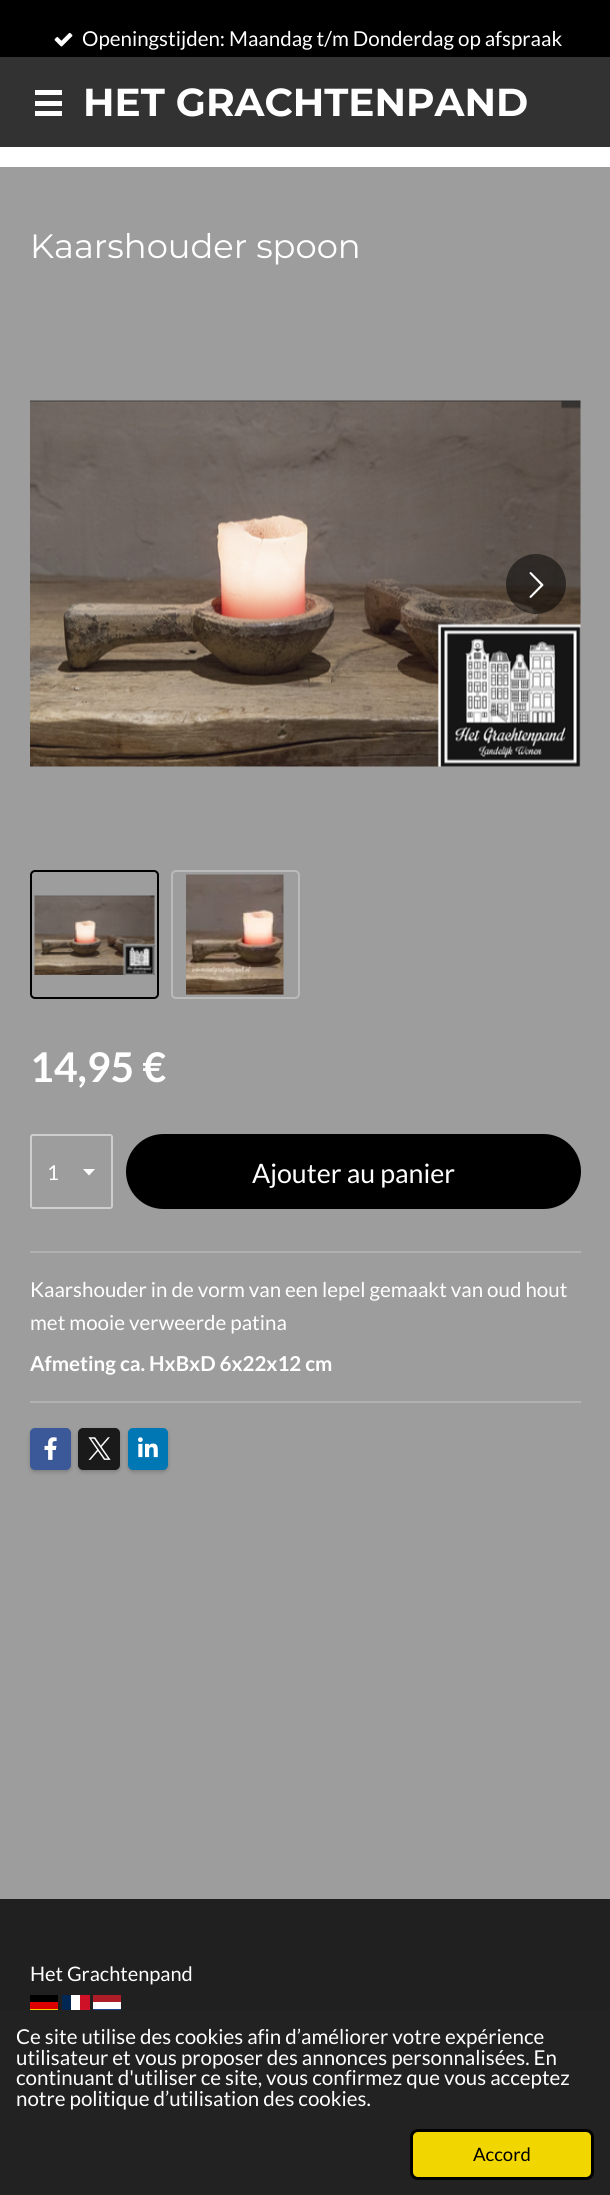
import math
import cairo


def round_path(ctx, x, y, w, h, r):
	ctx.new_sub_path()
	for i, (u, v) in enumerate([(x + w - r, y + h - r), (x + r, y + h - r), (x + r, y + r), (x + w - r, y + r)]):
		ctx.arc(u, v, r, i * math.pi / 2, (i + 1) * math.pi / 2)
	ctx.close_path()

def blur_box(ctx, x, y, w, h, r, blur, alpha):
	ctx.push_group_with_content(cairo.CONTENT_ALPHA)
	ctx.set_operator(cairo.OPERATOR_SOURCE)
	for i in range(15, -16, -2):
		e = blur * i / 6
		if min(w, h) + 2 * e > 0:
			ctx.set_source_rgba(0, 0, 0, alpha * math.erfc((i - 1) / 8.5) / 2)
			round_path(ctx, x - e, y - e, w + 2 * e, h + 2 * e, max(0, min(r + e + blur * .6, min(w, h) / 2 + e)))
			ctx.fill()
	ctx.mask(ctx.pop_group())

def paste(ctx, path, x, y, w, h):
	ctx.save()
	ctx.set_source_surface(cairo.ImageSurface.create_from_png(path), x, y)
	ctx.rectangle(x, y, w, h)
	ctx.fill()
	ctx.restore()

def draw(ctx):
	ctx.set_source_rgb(1, 1, 1)
	ctx.paint()
	ctx.set_source_rgb(0, 0, 0)
	ctx.rectangle(0, 0, 610, 57)
	ctx.fill()
	paste(ctx, 'media/1.png', 54, 32, 19, 15)
	ctx.select_font_face('Lato')
	ctx.set_font_size(20.55)
	ctx.set_source_rgb(1, 1, 1)
	ctx.move_to(82, 46)
	ctx.show_text('Openingstijden: Maandag t/m Donderdag op afspraak')
	ctx.set_source_rgb(0.196, 0.196, 0.196)
	ctx.rectangle(0, 57, 610, 90)
	ctx.fill()
	ctx.set_source_rgb(1, 1, 1)
	ctx.rectangle(35, 101, 27, 5)
	ctx.rectangle(35, 90, 27, 5)
	ctx.rectangle(35, 111, 27, 5)
	ctx.fill()
	ctx.select_font_face('Montserrat', cairo.FONT_SLANT_NORMAL, cairo.FONT_WEIGHT_BOLD)
	ctx.set_font_size(39)
	ctx.move_to(83, 116)
	ctx.show_text('HET GRACHTENPAND')
	ctx.set_source_rgb(0.616, 0.616, 0.616)
	ctx.rectangle(0, 167, 610, 1732)
	ctx.fill()
	ctx.select_font_face('Montserrat')
	ctx.set_font_size(33.75)
	ctx.set_source_rgb(1, 1, 1)
	ctx.move_to(30, 258)
	ctx.show_text('Kaarshouder spoon')
	paste(ctx, 'media/2.png', 30, 400, 551, 367)
	ctx.set_source_rgba(0, 0, 0, 0.5)
	ctx.arc(536, 584, 30, 0, 2 * math.pi)
	ctx.fill()
	paste(ctx, 'media/3.png', 529, 572, 15, 26)
	round_path(ctx, 31, 871, 127, 127, 4)
	ctx.set_source_rgb(0, 0, 0)
	ctx.stroke()
	paste(ctx, 'media/4.png', 34, 895, 121, 80)
	round_path(ctx, 172, 871, 127, 127, 4)
	ctx.set_source_rgb(0.729, 0.729, 0.729)
	ctx.stroke()
	paste(ctx, 'media/5.png', 186, 874, 98, 121)
	ctx.select_font_face('Lato', cairo.FONT_SLANT_NORMAL, cairo.FONT_WEIGHT_BOLD)
	ctx.set_font_size(41)
	ctx.set_source_rgb(1, 1, 1)
	ctx.move_to(30, 1082)
	ctx.show_text('14,95 €')
	ctx.save()
	ctx.rectangle(83, 1169, 13, 7)
	ctx.clip()
	ctx.new_path()
	ctx.move_to(89, 1175.5)
	ctx.line_to(82.5, 1168.5)
	ctx.line_to(95.5, 1168.5)
	ctx.close_path()
	ctx.fill()
	ctx.restore()
	round_path(ctx, 31, 1135, 81, 73, 2)
	ctx.set_source_rgb(0.808, 0.808, 0.808)
	ctx.stroke()
	ctx.select_font_face('Lato')
	ctx.set_font_size(20.55)
	ctx.set_source_rgb(1, 1, 1)
	ctx.move_to(47, 1180)
	ctx.show_text('1')
	ctx.set_source_rgb(0, 0, 0)
	round_path(ctx, 126, 1134, 455, 75, 37.5)
	ctx.fill()
	ctx.set_font_size(26.75)
	ctx.set_source_rgb(1, 1, 1)
	ctx.move_to(252, 1183)
	ctx.show_text('Ajouter au panier')
	ctx.set_source_rgb(0.694, 0.694, 0.694)
	ctx.rectangle(30, 1251, 551, 2)
	ctx.fill()
	ctx.set_font_size(20.55)
	ctx.set_source_rgb(1, 1, 1)
	ctx.move_to(30, 1297)
	ctx.show_text('Kaarshouder in de vorm van een lepel gemaakt van oud hout')
	ctx.move_to(30, 1330)
	ctx.show_text('met mooie verweerde patina')
	ctx.select_font_face('Lato', cairo.FONT_SLANT_NORMAL, cairo.FONT_WEIGHT_BOLD)
	ctx.move_to(30, 1371)
	ctx.show_text('Afmeting ca. HxBxD 6x22x12 cm')
	ctx.set_source_rgb(0.694, 0.694, 0.694)
	ctx.rectangle(30, 1401, 551, 2)
	ctx.fill()
	ctx.set_source_rgb(0, 0, 0)
	blur_box(ctx, 30, 1430, 41, 42, 5, 2, 0.2)
	ctx.set_source_rgb(0.231, 0.349, 0.596)
	round_path(ctx, 30, 1428, 41, 42, 5)
	ctx.fill()
	paste(ctx, 'media/6.png', 44, 1437, 13, 23)
	ctx.set_source_rgb(0, 0, 0)
	blur_box(ctx, 78, 1430, 42, 42, 5, 2, 0.2)
	ctx.set_source_rgb(0.102, 0.102, 0.102)
	round_path(ctx, 78, 1428, 42, 42, 5)
	ctx.fill()
	paste(ctx, 'media/7.png', 88, 1437, 23, 23)
	ctx.set_source_rgb(0, 0, 0)
	blur_box(ctx, 128, 1430, 40, 42, 5, 2, 0.2)
	ctx.set_source_rgb(0, 0.467, 0.71)
	round_path(ctx, 128, 1428, 40, 42, 5)
	ctx.fill()
	paste(ctx, 'media/8.png', 138, 1437, 20, 21)
	ctx.set_source_rgb(0.125, 0.125, 0.125)
	ctx.rectangle(0, 1899, 610, 111)
	ctx.fill()
	ctx.select_font_face('Lato')
	ctx.set_font_size(20)
	ctx.set_source_rgb(1, 1, 1)
	ctx.move_to(30, 1981)
	ctx.show_text('Het Grachtenpand')
	ctx.set_source_rgb(1, 0.808, 0)
	ctx.rectangle(30, 2009, 28, 1)
	ctx.fill()
	ctx.set_source_rgb(0, 0, 0)
	ctx.rectangle(30, 1995, 28, 7)
	ctx.fill()
	ctx.set_source_rgb(0.867, 0, 0)
	ctx.rectangle(30, 2002, 28, 7)
	ctx.fill()
	ctx.set_source_rgb(1, 1, 1)
	ctx.rectangle(71, 1995, 9, 15)
	ctx.fill()
	ctx.set_source_rgb(0, 0.149, 0.329)
	ctx.rectangle(62, 1995, 9, 15)
	ctx.fill()
	ctx.set_source_rgb(0.808, 0.067, 0.149)
	ctx.rectangle(80, 1995, 10, 15)
	ctx.fill()
	ctx.set_source_rgb(0.129, 0.275, 0.545)
	ctx.rectangle(93, 2009, 28, 1)
	ctx.fill()
	ctx.set_source_rgb(1, 1, 1)
	ctx.rectangle(93, 2002, 28, 7)
	ctx.fill()
	ctx.set_source_rgb(0.682, 0.11, 0.157)
	ctx.rectangle(93, 1995, 28, 7)
	ctx.fill()
	ctx.set_source_rgb(0.133, 0.133, 0.133)
	ctx.rectangle(0, 2010, 610, 185)
	ctx.fill()
	ctx.set_font_size(20.55)
	ctx.set_source_rgb(1, 1, 1)
	for x, y, s in [
		(16, 2044, 'Ce site utilise des cookies afin d’améliorer votre expérience'),
		(16, 2065, 'utilisateur et vous proposer des annonces personnalisées. En'),
		(16, 2085, 'continuant d\'utiliser ce site, vous confirmez que vous acceptez'),
		(16, 2106, 'notre politique d’utilisation des cookies.'),
	]:
		ctx.move_to(x, y)
		ctx.show_text(s)
	ctx.set_source_rgb(0.945, 0.839, 0)
	round_path(ctx, 411.5, 2130.5, 181, 48, 6.5)
	ctx.fill_preserve()
	ctx.set_source_rgb(0, 0, 0)
	ctx.set_line_width(3)
	ctx.stroke()
	ctx.set_font_size(18.5)
	ctx.move_to(473, 2161)
	ctx.show_text('Accord')


surface = cairo.ImageSurface(cairo.FORMAT_RGB24, 610, 2195)
ctx = cairo.Context(surface)
options = cairo.FontOptions()
options.set_hint_metrics(cairo.HINT_METRICS_OFF)
options.set_hint_style(cairo.HINT_STYLE_NONE)
ctx.set_font_options(options)
ctx.set_miter_limit(4)
draw(ctx)
surface.write_to_png('image.png')
